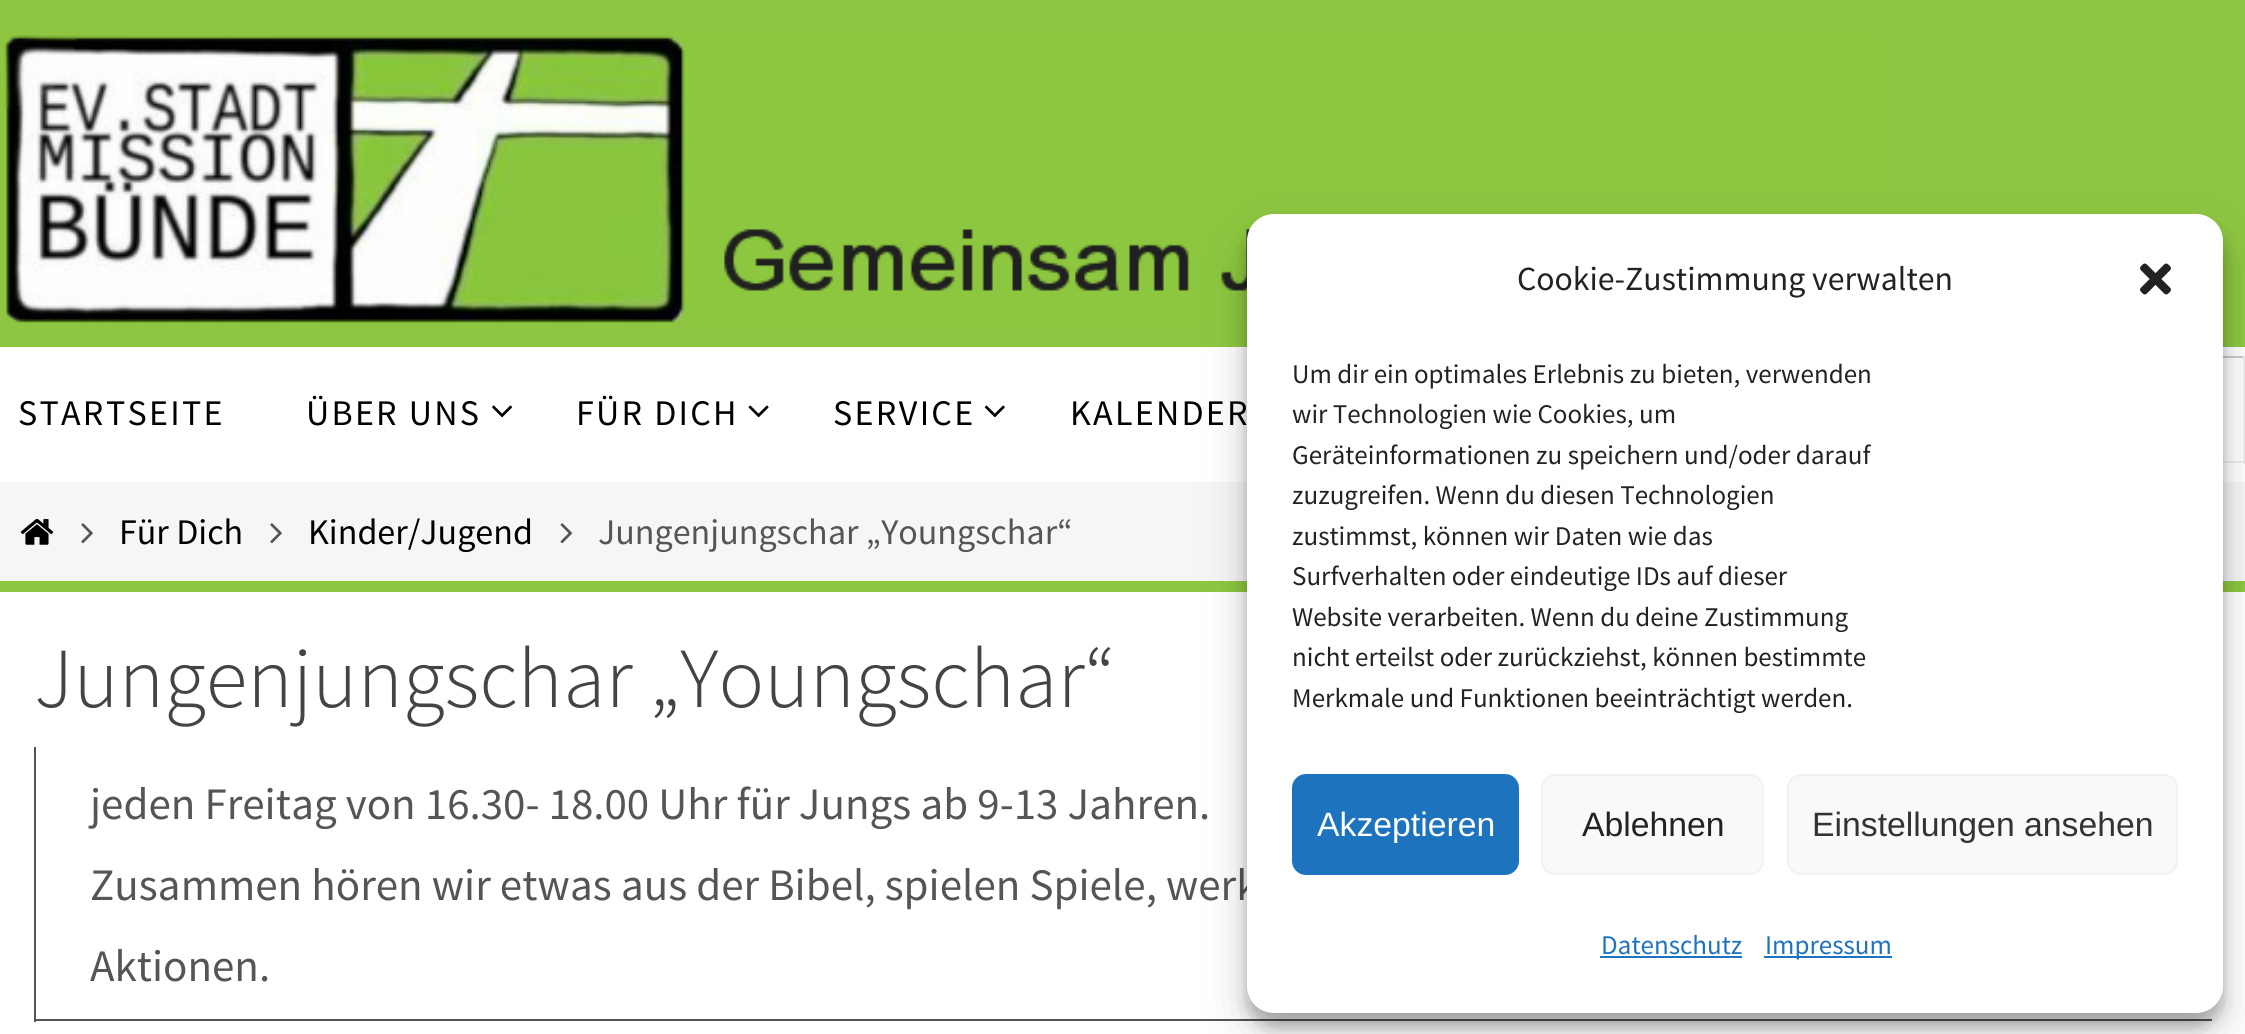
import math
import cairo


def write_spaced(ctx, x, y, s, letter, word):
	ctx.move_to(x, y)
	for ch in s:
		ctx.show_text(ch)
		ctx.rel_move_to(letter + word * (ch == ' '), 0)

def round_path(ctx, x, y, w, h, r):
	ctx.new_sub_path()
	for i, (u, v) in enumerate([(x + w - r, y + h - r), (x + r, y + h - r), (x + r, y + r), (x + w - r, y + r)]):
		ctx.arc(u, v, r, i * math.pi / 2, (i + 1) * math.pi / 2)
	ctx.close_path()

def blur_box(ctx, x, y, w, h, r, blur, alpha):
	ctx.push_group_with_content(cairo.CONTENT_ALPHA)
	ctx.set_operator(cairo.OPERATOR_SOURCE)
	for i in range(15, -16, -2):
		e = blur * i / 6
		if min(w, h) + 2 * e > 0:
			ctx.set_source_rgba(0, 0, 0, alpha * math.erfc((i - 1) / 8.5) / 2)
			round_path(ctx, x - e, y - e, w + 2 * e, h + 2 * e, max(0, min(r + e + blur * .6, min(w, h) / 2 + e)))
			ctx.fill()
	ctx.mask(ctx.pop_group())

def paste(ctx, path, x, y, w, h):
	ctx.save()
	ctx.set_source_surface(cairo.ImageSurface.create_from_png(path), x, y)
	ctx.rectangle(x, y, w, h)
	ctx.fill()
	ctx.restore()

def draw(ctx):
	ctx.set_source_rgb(0.557, 0.776, 0.255)
	ctx.paint()
	ctx.set_source_rgb(1, 1, 1)
	ctx.rectangle(0, 347, 2245, 135)
	ctx.fill()
	paste(ctx, 'media/1.png', 4, 35, 1874, 288)
	ctx.select_font_face('Source Sans Pro')
	ctx.set_font_size(36)
	ctx.set_source_rgb(0, 0, 0)
	write_spaced(ctx, 18, 425, 'STARTSEITE', 2.25, 0)
	write_spaced(ctx, 306, 425, 'ÜBER UNS', 2.25, 0)
	paste(ctx, 'media/2.png', 492, 405, 21, 13)
	write_spaced(ctx, 576, 425, 'FÜR DICH', 2.25, 0)
	paste(ctx, 'media/3.png', 748, 405, 21, 13)
	write_spaced(ctx, 833, 425, 'SERVICE', 2.25, 0)
	paste(ctx, 'media/4.png', 984, 405, 21, 13)
	write_spaced(ctx, 1070, 425, 'KALENDER', 2.25, 0)
	ctx.set_source_rgb(0.8, 0.8, 0.8)
	ctx.rectangle(2223, 356, 22, 2)
	ctx.fill()
	ctx.set_source_rgb(0.933, 0.933, 0.933)
	ctx.rectangle(2243, 356, 2, 108)
	ctx.rectangle(2223, 461, 22, 2)
	ctx.fill()
	ctx.set_source_rgb(0.961, 0.961, 0.961)
	ctx.rectangle(0, 482, 2245, 99)
	ctx.fill()
	paste(ctx, 'media/5.png', 20, 519, 34, 26)
	paste(ctx, 'media/6.png', 81, 523, 12, 21)
	ctx.set_source_rgb(0, 0, 0)
	ctx.move_to(119, 544)
	ctx.show_text('Für Dich')
	paste(ctx, 'media/6.png', 270, 523, 12, 21)
	ctx.move_to(308, 544)
	ctx.show_text('Kinder/Jugend')
	paste(ctx, 'media/7.png', 560, 523, 13, 21)
	ctx.set_source_rgb(0.333, 0.333, 0.333)
	ctx.move_to(598, 544)
	ctx.show_text('Jungenjungschar „Youngschar“')
	ctx.set_source_rgb(1, 1, 1)
	ctx.rectangle(0, 592, 2245, 442)
	ctx.fill()
	ctx.select_font_face('Source Sans Pro Light')
	ctx.set_font_size(85.5)
	ctx.set_source_rgb(0.267, 0.267, 0.267)
	ctx.move_to(34, 707)
	ctx.show_text('Jungenjungschar „Youngschar“')
	ctx.set_source_rgb(0.333, 0.333, 0.333)
	ctx.rectangle(34, 1019, 2178, 2)
	ctx.fill()
	ctx.rectangle(34, 747, 2, 275)
	ctx.fill()
	ctx.select_font_face('Source Sans Pro')
	ctx.set_font_size(45)
	for x, y, s in [
		(90, 819, 'jeden Freitag von 16.30- 18.00 Uhr für Jungs ab 9-13 Jahren.'),
		(90, 900, 'Zusammen hören wir etwas aus der Bibel, spielen Spiele, werk'),
		(90, 981, 'Aktionen.'),
	]:
		ctx.move_to(x, y)
		ctx.show_text(s)
	ctx.set_source_rgb(0, 0, 0)
	blur_box(ctx, 1247, 227, 976, 799, 27, 7, 0.23)
	blur_box(ctx, 1247, 236, 976, 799, 27, 22.5, 0.19)
	ctx.set_source_rgb(1, 1, 1)
	round_path(ctx, 1247, 214, 976, 799, 27)
	ctx.fill()
	ctx.set_font_size(33.75)
	ctx.set_source_rgb(0.133, 0.133, 0.133)
	ctx.move_to(1517, 290)
	ctx.show_text('Cookie-Zustimmung verwalten')
	paste(ctx, 'media/8.png', 2140, 263, 31, 32)
	ctx.set_font_size(27)
	for x, y, s in [
		(1292, 383, 'Um dir ein optimales Erlebnis zu bieten, verwenden'),
		(1292, 423, 'wir Technologien wie Cookies, um'),
		(1292, 464, 'Geräteinformationen zu speichern und/oder darauf'),
		(1292, 504, 'zuzugreifen. Wenn du diesen Technologien'),
		(1292, 545, 'zustimmst, können wir Daten wie das'),
		(1292, 585, 'Surfverhalten oder eindeutige IDs auf dieser'),
		(1292, 626, 'Website verarbeiten. Wenn du deine Zustimmung'),
		(1292, 666, 'nicht erteilst oder zurückziehst, können bestimmte'),
		(1292, 707, 'Merkmale und Funktionen beeinträchtigt werden.'),
	]:
		ctx.move_to(x, y)
		ctx.show_text(s)
	ctx.set_source_rgb(0.118, 0.451, 0.745)
	round_path(ctx, 1293, 775, 225, 99, 13)
	ctx.fill_preserve()
	ctx.stroke()
	ctx.select_font_face('Liberation Sans')
	ctx.set_font_size(33.75)
	ctx.set_source_rgb(1, 1, 1)
	ctx.move_to(1317, 836)
	ctx.show_text('Akzeptieren')
	ctx.set_source_rgb(0.976, 0.976, 0.976)
	round_path(ctx, 1542, 775, 221, 99, 13)
	ctx.fill_preserve()
	ctx.set_source_rgb(0.949, 0.949, 0.949)
	ctx.stroke()
	ctx.set_source_rgb(0.133, 0.133, 0.133)
	ctx.move_to(1582, 836)
	ctx.show_text('Ablehnen')
	ctx.set_source_rgb(0.976, 0.976, 0.976)
	round_path(ctx, 1788, 775, 389, 99, 13)
	ctx.fill_preserve()
	ctx.set_source_rgb(0.949, 0.949, 0.949)
	ctx.stroke()
	ctx.set_source_rgb(0.2, 0.2, 0.2)
	ctx.move_to(1812, 836)
	ctx.show_text('Einstellungen ansehen')
	ctx.select_font_face('Source Sans Pro')
	ctx.set_font_size(27)
	ctx.set_source_rgb(0.118, 0.451, 0.745)
	ctx.move_to(1601, 954)
	ctx.show_text('Datenschutz')
	ctx.rectangle(1600, 956, 142, 2)
	ctx.fill()
	ctx.rectangle(1764, 956, 128, 2)
	ctx.fill()
	ctx.move_to(1765, 954)
	ctx.show_text('Impressum')


surface = cairo.ImageSurface(cairo.FORMAT_RGB24, 2245, 1034)
ctx = cairo.Context(surface)
options = cairo.FontOptions()
options.set_hint_metrics(cairo.HINT_METRICS_OFF)
options.set_hint_style(cairo.HINT_STYLE_NONE)
ctx.set_font_options(options)
ctx.set_miter_limit(4)
draw(ctx)
surface.write_to_png('image.png')
